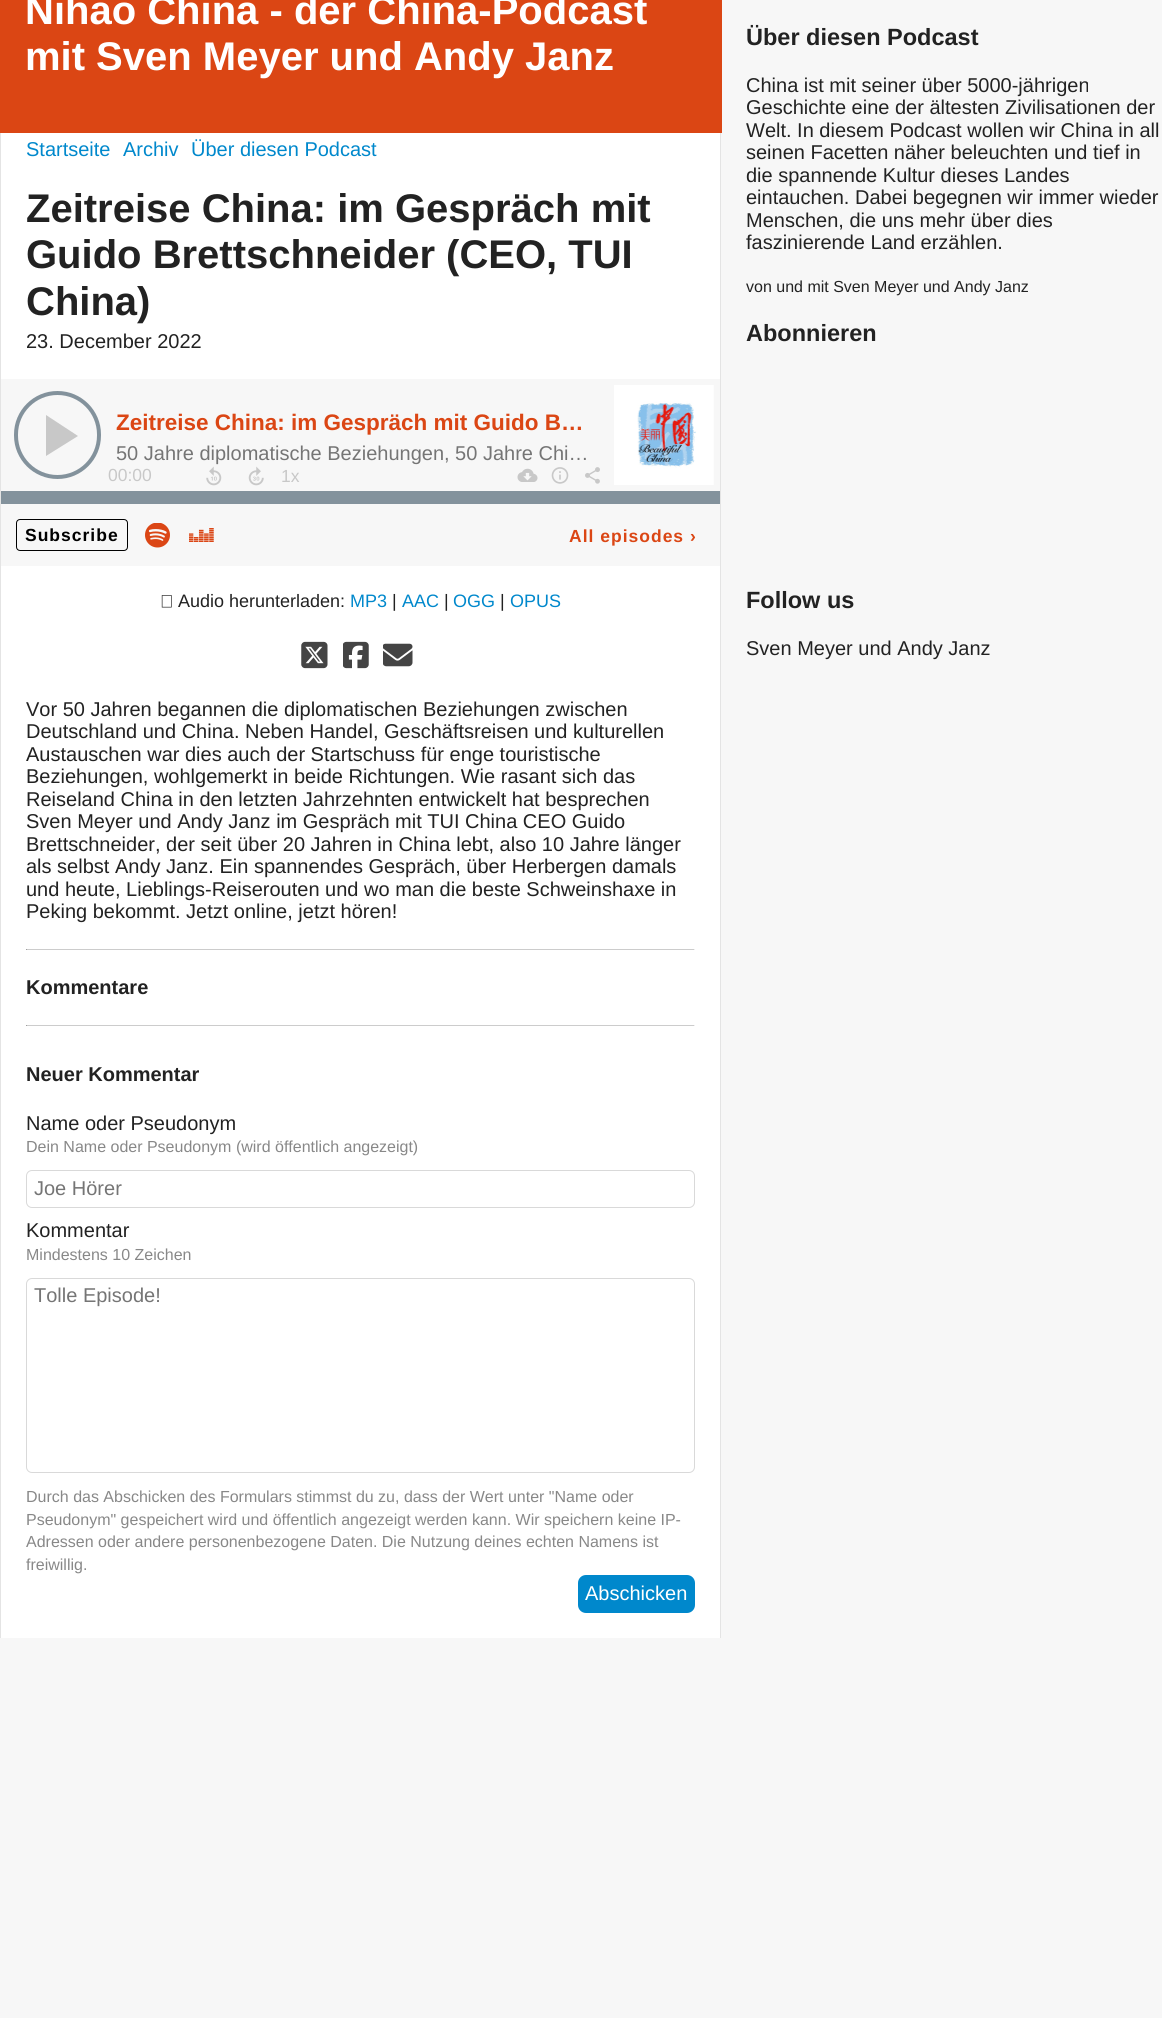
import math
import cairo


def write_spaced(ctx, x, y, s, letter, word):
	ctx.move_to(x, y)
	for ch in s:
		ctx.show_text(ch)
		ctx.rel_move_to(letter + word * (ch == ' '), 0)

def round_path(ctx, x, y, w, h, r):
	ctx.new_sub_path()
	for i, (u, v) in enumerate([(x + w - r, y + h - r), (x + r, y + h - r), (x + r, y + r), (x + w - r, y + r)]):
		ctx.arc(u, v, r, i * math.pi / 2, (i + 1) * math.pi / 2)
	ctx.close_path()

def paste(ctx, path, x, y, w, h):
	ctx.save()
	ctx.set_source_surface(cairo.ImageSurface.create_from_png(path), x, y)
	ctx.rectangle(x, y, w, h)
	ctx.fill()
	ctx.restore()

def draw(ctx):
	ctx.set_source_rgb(0.965, 0.965, 0.965)
	ctx.paint()
	ctx.set_source_rgb(1, 1, 1)
	ctx.rectangle(1, 133, 719, 1505)
	ctx.fill()
	ctx.set_source_rgb(0.859, 0.275, 0.082)
	ctx.rectangle(0, 0, 722, 133)
	ctx.fill()
	ctx.select_font_face('Liberation Sans', cairo.FONT_SLANT_NORMAL, cairo.FONT_WEIGHT_BOLD)
	ctx.set_font_size(40)
	ctx.set_source_rgb(1, 1, 1)
	ctx.move_to(25, 24)
	ctx.show_text('Nihao China - der China-Podcast')
	ctx.move_to(25, 70)
	ctx.show_text('mit Sven Meyer und Andy Janz')
	ctx.set_source_rgb(0.894, 0.894, 0.894)
	ctx.rectangle(720, 133, 1, 1505)
	ctx.fill()
	ctx.rectangle(0, 133, 1, 1505)
	ctx.fill()
	ctx.select_font_face('Liberation Sans')
	ctx.set_font_size(20)
	ctx.set_source_rgb(0, 0.533, 0.8)
	for x, y, s in [
		(26, 156, 'Startseite'),
		(123, 156, 'Archiv'),
		(191, 156, 'Über diesen Podcast'),
	]:
		ctx.move_to(x, y)
		ctx.show_text(s)
	ctx.select_font_face('Liberation Sans', cairo.FONT_SLANT_NORMAL, cairo.FONT_WEIGHT_BOLD)
	ctx.set_font_size(40)
	ctx.set_source_rgb(0.133, 0.133, 0.133)
	for x, y, s in [
		(26, 222, 'Zeitreise China: im Gespräch mit'),
		(26, 268, 'Guido Brettschneider (CEO, TUI'),
		(26, 315, 'China)'),
	]:
		ctx.move_to(x, y)
		ctx.show_text(s)
	ctx.select_font_face('Liberation Sans')
	ctx.set_font_size(20)
	ctx.move_to(26, 348)
	ctx.show_text('23. December 2022')
	ctx.set_source_rgb(0.965, 0.965, 0.965)
	ctx.rectangle(1, 379, 719, 187)
	ctx.fill()
	round_path(ctx, 16, 393, 83, 84, 41.5)
	ctx.set_source_rgb(0.514, 0.573, 0.612)
	ctx.set_line_width(4)
	ctx.stroke()
	ctx.set_source_rgb(0.784, 0.784, 0.784)
	ctx.new_path()
	ctx.move_to(46, 415)
	ctx.line_to(78, 436)
	ctx.line_to(46, 456)
	ctx.close_path()
	ctx.fill()
	ctx.select_font_face('Liberation Sans', cairo.FONT_SLANT_NORMAL, cairo.FONT_WEIGHT_BOLD)
	ctx.set_font_size(22.5)
	ctx.set_source_rgb(0.859, 0.275, 0.082)
	ctx.move_to(116, 430)
	ctx.show_text('Zeitreise China: im Gespräch mit Guido B…')
	ctx.select_font_face('Liberation Sans')
	ctx.set_font_size(20)
	ctx.set_source_rgb(0.459, 0.459, 0.459)
	ctx.move_to(116, 460)
	ctx.show_text('50 Jahre diplomatische Beziehungen, 50 Jahre Chi…')
	paste(ctx, 'media/1.png', 614, 385, 100, 100)
	ctx.set_font_size(17.5)
	ctx.set_source_rgb(0.784, 0.784, 0.784)
	ctx.move_to(108, 481)
	ctx.show_text('00:00')
	ctx.set_source_rgb(0.514, 0.573, 0.612)
	ctx.rectangle(1, 491, 719, 13)
	ctx.fill()
	paste(ctx, 'media/2.png', 206, 466, 16, 20)
	paste(ctx, 'media/3.png', 248, 466, 16, 20)
	ctx.set_source_rgb(0.784, 0.784, 0.784)
	ctx.move_to(281, 482)
	ctx.show_text('1x')
	paste(ctx, 'media/4.png', 517, 468, 21, 14)
	paste(ctx, 'media/5.png', 551, 467, 18, 17)
	paste(ctx, 'media/6.png', 585, 467, 15, 17)
	round_path(ctx, 16.5, 519.5, 111, 31, 3.5)
	ctx.set_source_rgb(0, 0, 0)
	ctx.set_line_width(1)
	ctx.stroke()
	ctx.select_font_face('Liberation Sans', cairo.FONT_SLANT_NORMAL, cairo.FONT_WEIGHT_BOLD)
	write_spaced(ctx, 25, 541, 'Subscribe', 1, 0)
	paste(ctx, 'media/7.png', 145, 523, 25, 25)
	paste(ctx, 'media/8.png', 189, 528, 25, 14)
	ctx.set_source_rgb(0.859, 0.275, 0.082)
	write_spaced(ctx, 569, 542, 'All episodes ›', 1, 0)
	paste(ctx, 'media/9.png', 161, 595, 11, 13)
	ctx.select_font_face('Liberation Sans')
	ctx.set_font_size(18)
	ctx.set_source_rgb(0.133, 0.133, 0.133)
	ctx.move_to(178, 607)
	ctx.show_text('Audio herunterladen:')
	ctx.set_source_rgb(0, 0.533, 0.8)
	ctx.move_to(350, 607)
	ctx.show_text('MP3')
	ctx.set_source_rgb(0.133, 0.133, 0.133)
	ctx.move_to(392, 607)
	ctx.show_text('|')
	ctx.set_source_rgb(0, 0.533, 0.8)
	ctx.move_to(402, 607)
	ctx.show_text('AAC')
	ctx.set_source_rgb(0.133, 0.133, 0.133)
	ctx.move_to(444, 607)
	ctx.show_text('|')
	ctx.set_source_rgb(0, 0.533, 0.8)
	ctx.move_to(453, 607)
	ctx.show_text('OGG')
	ctx.set_source_rgb(0.133, 0.133, 0.133)
	ctx.move_to(500, 607)
	ctx.show_text('|')
	ctx.set_source_rgb(0, 0.533, 0.8)
	ctx.move_to(510, 607)
	ctx.show_text('OPUS')
	paste(ctx, 'media/10.png', 301, 641, 27, 28)
	paste(ctx, 'media/11.png', 343, 641, 26, 28)
	paste(ctx, 'media/12.png', 383, 643, 30, 24)
	ctx.set_font_size(20)
	ctx.set_source_rgb(0.133, 0.133, 0.133)
	for x, y, s in [
		(26, 716, 'Vor 50 Jahren begannen die diplomatischen Beziehungen zwischen'),
		(26, 738, 'Deutschland und China. Neben Handel, Geschäftsreisen und kulturellen'),
		(26, 761, 'Austauschen war dies auch der Startschuss für enge touristische'),
		(26, 783, 'Beziehungen, wohlgemerkt in beide Richtungen. Wie rasant sich das'),
		(26, 806, 'Reiseland China in den letzten Jahrzehnten entwickelt hat besprechen'),
		(26, 828, 'Sven Meyer und Andy Janz im Gespräch mit TUI China CEO Guido'),
		(26, 851, 'Brettschneider, der seit über 20 Jahren in China lebt, also 10 Jahre länger'),
		(26, 873, 'als selbst Andy Janz. Ein spannendes Gespräch, über Herbergen damals'),
		(26, 896, 'und heute, Lieblings-Reiserouten und wo man die beste Schweinshaxe in'),
		(26, 918, 'Peking bekommt. Jetzt online, jetzt hören!'),
	]:
		ctx.move_to(x, y)
		ctx.show_text(s)
	ctx.set_source_rgb(0.8, 0.8, 0.8)
	ctx.rectangle(26, 949, 669, 1)
	ctx.fill()
	ctx.set_source_rgb(0.933, 0.933, 0.933)
	ctx.rectangle(694, 949, 1, 1)
	ctx.fill()
	ctx.set_source_rgb(0.624, 0.624, 0.624)
	ctx.rectangle(26, 949, 1, 1)
	ctx.fill()
	ctx.select_font_face('Liberation Sans', cairo.FONT_SLANT_NORMAL, cairo.FONT_WEIGHT_BOLD)
	ctx.set_source_rgb(0.133, 0.133, 0.133)
	ctx.move_to(26, 994)
	ctx.show_text('Kommentare')
	ctx.set_source_rgb(0.8, 0.8, 0.8)
	ctx.rectangle(26, 1025, 669, 1)
	ctx.fill()
	ctx.set_source_rgb(0.933, 0.933, 0.933)
	ctx.rectangle(694, 1025, 1, 1)
	ctx.fill()
	ctx.set_source_rgb(0.624, 0.624, 0.624)
	ctx.rectangle(26, 1025, 1, 1)
	ctx.fill()
	ctx.set_source_rgb(0.133, 0.133, 0.133)
	ctx.move_to(26, 1081)
	ctx.show_text('Neuer Kommentar')
	ctx.select_font_face('Liberation Sans')
	ctx.move_to(26, 1130)
	ctx.show_text('Name oder Pseudonym')
	ctx.set_font_size(16)
	ctx.set_source_rgb(0.533, 0.533, 0.533)
	ctx.move_to(26, 1152)
	ctx.show_text('Dein Name oder Pseudonym (wird öffentlich angezeigt)')
	round_path(ctx, 26.5, 1170.5, 668, 37, 5.5)
	ctx.set_source_rgb(0.851, 0.851, 0.851)
	ctx.stroke()
	ctx.set_font_size(20)
	ctx.set_source_rgb(0.459, 0.459, 0.459)
	ctx.move_to(34, 1195)
	ctx.show_text('Joe Hörer')
	ctx.set_source_rgb(0.133, 0.133, 0.133)
	ctx.move_to(26, 1237)
	ctx.show_text('Kommentar')
	ctx.set_font_size(16)
	ctx.set_source_rgb(0.533, 0.533, 0.533)
	ctx.move_to(26, 1260)
	ctx.show_text('Mindestens 10 Zeichen')
	round_path(ctx, 26.5, 1278.5, 668, 194, 5.5)
	ctx.set_source_rgb(0.851, 0.851, 0.851)
	ctx.stroke()
	ctx.set_font_size(20)
	ctx.set_source_rgb(0.459, 0.459, 0.459)
	ctx.move_to(34, 1302)
	ctx.show_text('Tolle Episode!')
	ctx.set_font_size(16)
	ctx.set_source_rgb(0.533, 0.533, 0.533)
	for x, y, s in [
		(26, 1502, 'Durch das Abschicken des Formulars stimmst du zu, dass der Wert unter "Name oder'),
		(26, 1525, 'Pseudonym" gespeichert wird und öffentlich angezeigt werden kann. Wir speichern keine IP-'),
		(26, 1547, 'Adressen oder andere personenbezogene Daten. Die Nutzung deines echten Namens ist'),
		(26, 1570, 'freiwillig.'),
	]:
		ctx.move_to(x, y)
		ctx.show_text(s)
	ctx.set_source_rgb(0, 0.533, 0.8)
	round_path(ctx, 578, 1575, 117, 38, 8)
	ctx.fill()
	ctx.set_font_size(20)
	ctx.set_source_rgb(1, 1, 1)
	ctx.move_to(585, 1600)
	ctx.show_text('Abschicken')
	ctx.select_font_face('Liberation Sans', cairo.FONT_SLANT_NORMAL, cairo.FONT_WEIGHT_BOLD)
	ctx.set_font_size(23.5)
	ctx.set_source_rgb(0.133, 0.133, 0.133)
	ctx.move_to(746, 45)
	ctx.show_text('Über diesen Podcast')
	ctx.select_font_face('Liberation Sans')
	ctx.set_font_size(20)
	for x, y, s in [
		(746, 92, 'China ist mit seiner über 5000-jährigen'),
		(746, 114, 'Geschichte eine der ältesten Zivilisationen der'),
		(746, 137, 'Welt. In diesem Podcast wollen wir China in all'),
		(746, 159, 'seinen Facetten näher beleuchten und tief in'),
		(746, 182, 'die spannende Kultur dieses Landes'),
		(746, 204, 'eintauchen. Dabei begegnen wir immer wieder'),
		(746, 227, 'Menschen, die uns mehr über dies'),
		(746, 249, 'faszinierende Land erzählen.'),
	]:
		ctx.move_to(x, y)
		ctx.show_text(s)
	ctx.set_font_size(16)
	ctx.move_to(746, 292)
	ctx.show_text('von und mit Sven Meyer und Andy Janz')
	ctx.select_font_face('Liberation Sans', cairo.FONT_SLANT_NORMAL, cairo.FONT_WEIGHT_BOLD)
	ctx.set_font_size(23.5)
	ctx.move_to(746, 341)
	ctx.show_text('Abonnieren')
	ctx.move_to(746, 608)
	ctx.show_text('Follow us')
	ctx.select_font_face('Liberation Sans')
	ctx.set_font_size(20)
	ctx.move_to(746, 655)
	ctx.show_text('Sven Meyer und Andy Janz')


surface = cairo.ImageSurface(cairo.FORMAT_RGB24, 1162, 2018)
ctx = cairo.Context(surface)
options = cairo.FontOptions()
options.set_hint_metrics(cairo.HINT_METRICS_OFF)
options.set_hint_style(cairo.HINT_STYLE_NONE)
ctx.set_font_options(options)
ctx.set_miter_limit(4)
draw(ctx)
surface.write_to_png('image.png')
